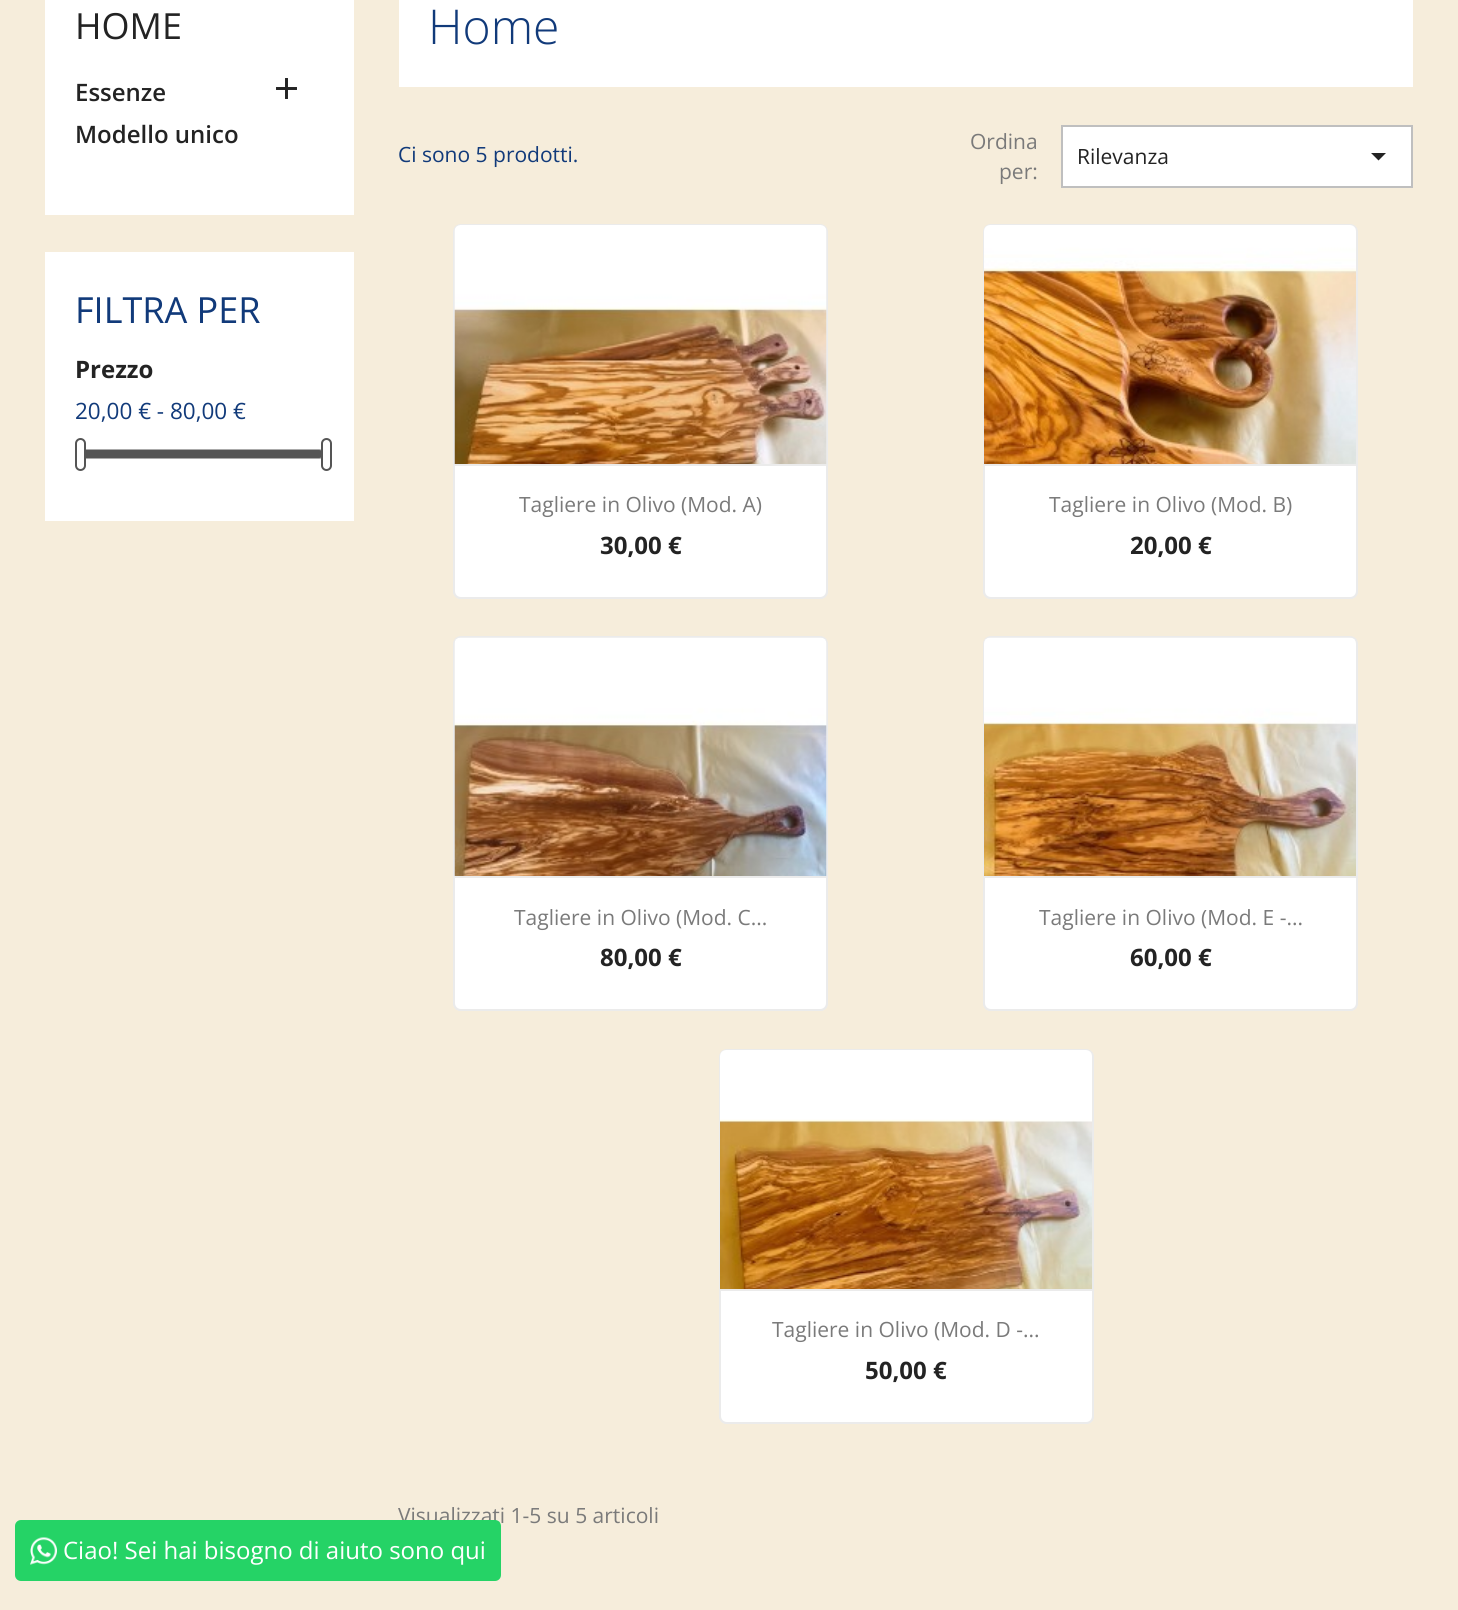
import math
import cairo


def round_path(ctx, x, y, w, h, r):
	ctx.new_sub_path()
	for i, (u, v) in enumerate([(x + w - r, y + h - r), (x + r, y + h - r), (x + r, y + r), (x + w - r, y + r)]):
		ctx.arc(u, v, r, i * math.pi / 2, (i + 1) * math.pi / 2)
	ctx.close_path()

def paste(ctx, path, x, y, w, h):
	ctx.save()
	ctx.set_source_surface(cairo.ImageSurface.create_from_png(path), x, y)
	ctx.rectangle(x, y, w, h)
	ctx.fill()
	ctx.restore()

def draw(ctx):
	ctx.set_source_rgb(0.961, 0.929, 0.859)
	ctx.paint()
	ctx.set_source_rgb(1, 1, 1)
	ctx.rectangle(45, 0, 309, 215)
	ctx.fill()
	ctx.select_font_face('Open Sans')
	ctx.set_font_size(36)
	ctx.set_source_rgb(0.137, 0.137, 0.137)
	ctx.move_to(75, 39)
	ctx.show_text('HOME')
	ctx.select_font_face('Open Sans SemiBold')
	ctx.set_font_size(24)
	ctx.move_to(75, 101)
	ctx.show_text('Essenze')
	paste(ctx, 'media/1.png', 276, 78, 21, 21)
	ctx.move_to(75, 143)
	ctx.show_text('Modello unico')
	ctx.set_source_rgb(1, 1, 1)
	ctx.rectangle(45, 252, 309, 269)
	ctx.fill()
	ctx.select_font_face('Open Sans')
	ctx.set_font_size(36)
	ctx.set_source_rgb(0.067, 0.227, 0.478)
	ctx.move_to(75, 323)
	ctx.show_text('FILTRA PER')
	ctx.select_font_face('Open Sans', cairo.FONT_SLANT_NORMAL, cairo.FONT_WEIGHT_BOLD)
	ctx.set_font_size(24)
	ctx.set_source_rgb(0.137, 0.137, 0.137)
	ctx.move_to(75, 378)
	ctx.show_text('Prezzo')
	ctx.select_font_face('Open Sans')
	ctx.set_font_size(22.5)
	ctx.set_source_rgb(0.067, 0.227, 0.478)
	ctx.move_to(75, 419)
	ctx.show_text('20,00 € - 80,00 €')
	round_path(ctx, 76, 450, 247, 8, 4)
	ctx.set_source_rgb(0.667, 0.667, 0.667)
	ctx.stroke()
	ctx.set_source_rgb(0.333, 0.333, 0.333)
	round_path(ctx, 77, 450, 246, 8, 4)
	ctx.fill()
	ctx.set_source_rgb(1, 1, 1)
	round_path(ctx, 76, 439, 9, 31, 4.5)
	ctx.fill_preserve()
	ctx.set_source_rgb(0.333, 0.333, 0.333)
	ctx.stroke()
	ctx.set_source_rgb(1, 1, 1)
	round_path(ctx, 322, 439, 9, 31, 4.5)
	ctx.fill_preserve()
	ctx.set_source_rgb(0.333, 0.333, 0.333)
	ctx.stroke()
	ctx.set_source_rgb(1, 1, 1)
	ctx.rectangle(399, 0, 1014, 87)
	ctx.fill()
	ctx.select_font_face('Open Sans Light')
	ctx.set_font_size(48)
	ctx.set_source_rgb(0.067, 0.227, 0.478)
	ctx.move_to(428, 44)
	ctx.show_text('Home')
	ctx.select_font_face('Open Sans')
	ctx.set_font_size(21)
	ctx.move_to(398, 162)
	ctx.show_text('Ci sono 5 prodotti.')
	ctx.set_source_rgb(0.478, 0.478, 0.478)
	ctx.move_to(970, 149)
	ctx.show_text('Ordina')
	ctx.move_to(999, 179)
	ctx.show_text('per:')
	ctx.set_source_rgb(1, 1, 1)
	ctx.rectangle(1062, 126, 350, 61)
	ctx.fill_preserve()
	ctx.set_source_rgb(0.749, 0.749, 0.749)
	ctx.stroke()
	ctx.set_source_rgb(0.137, 0.137, 0.137)
	ctx.move_to(1077, 164)
	ctx.show_text('Rilevanza')
	ctx.new_path()
	ctx.move_to(1371, 153)
	ctx.line_to(1386, 153)
	ctx.line_to(1378.5, 160.5)
	ctx.close_path()
	ctx.fill()
	round_path(ctx, 454, 225, 373, 373, 7)
	ctx.set_source_rgb(0.918, 0.918, 0.918)
	ctx.stroke()
	paste(ctx, 'media/2.png', 454, 225, 373, 239)
	ctx.set_source_rgb(1, 1, 1)
	ctx.new_path()
	ctx.move_to(454, 465)
	ctx.line_to(827, 465)
	ctx.line_to(827, 591)
	ctx.curve_to(827, 595, 824, 598, 820, 598)
	ctx.line_to(461, 598)
	ctx.curve_to(457, 598, 454, 595, 454, 591)
	ctx.close_path()
	ctx.fill_preserve()
	ctx.set_source_rgb(0.918, 0.918, 0.918)
	ctx.stroke()
	ctx.set_source_rgb(0.478, 0.478, 0.478)
	ctx.move_to(519, 512)
	ctx.show_text('Tagliere in Olivo (Mod. A)')
	ctx.select_font_face('Open Sans', cairo.FONT_SLANT_NORMAL, cairo.FONT_WEIGHT_BOLD)
	ctx.set_font_size(24)
	ctx.set_source_rgb(0.137, 0.137, 0.137)
	ctx.move_to(600, 554)
	ctx.show_text('30,00 €')
	round_path(ctx, 984, 225, 373, 373, 7)
	ctx.set_source_rgb(0.918, 0.918, 0.918)
	ctx.stroke()
	paste(ctx, 'media/3.png', 984, 225, 372, 239)
	ctx.set_source_rgb(1, 1, 1)
	ctx.new_path()
	ctx.move_to(984, 465)
	ctx.line_to(1357, 465)
	ctx.line_to(1357, 591)
	ctx.curve_to(1357, 595, 1354, 598, 1350, 598)
	ctx.line_to(991, 598)
	ctx.curve_to(987, 598, 984, 595, 984, 591)
	ctx.close_path()
	ctx.fill_preserve()
	ctx.set_source_rgb(0.918, 0.918, 0.918)
	ctx.stroke()
	ctx.select_font_face('Open Sans')
	ctx.set_font_size(21)
	ctx.set_source_rgb(0.478, 0.478, 0.478)
	ctx.move_to(1049, 512)
	ctx.show_text('Tagliere in Olivo (Mod. B)')
	ctx.select_font_face('Open Sans', cairo.FONT_SLANT_NORMAL, cairo.FONT_WEIGHT_BOLD)
	ctx.set_font_size(24)
	ctx.set_source_rgb(0.137, 0.137, 0.137)
	ctx.move_to(1130, 554)
	ctx.show_text('20,00 €')
	round_path(ctx, 454, 637, 373, 373, 7)
	ctx.set_source_rgb(0.918, 0.918, 0.918)
	ctx.stroke()
	paste(ctx, 'media/4.png', 454, 637, 373, 239)
	ctx.set_source_rgb(1, 1, 1)
	ctx.new_path()
	ctx.move_to(454, 877)
	ctx.line_to(827, 877)
	ctx.line_to(827, 1003)
	ctx.curve_to(827, 1007, 824, 1010, 820, 1010)
	ctx.line_to(461, 1010)
	ctx.curve_to(457, 1010, 454, 1007, 454, 1003)
	ctx.close_path()
	ctx.fill_preserve()
	ctx.set_source_rgb(0.918, 0.918, 0.918)
	ctx.stroke()
	ctx.select_font_face('Open Sans')
	ctx.set_font_size(21)
	ctx.set_source_rgb(0.478, 0.478, 0.478)
	ctx.move_to(514, 925)
	ctx.show_text('Tagliere in Olivo (Mod. C...')
	ctx.select_font_face('Open Sans', cairo.FONT_SLANT_NORMAL, cairo.FONT_WEIGHT_BOLD)
	ctx.set_font_size(24)
	ctx.set_source_rgb(0.137, 0.137, 0.137)
	ctx.move_to(600, 966)
	ctx.show_text('80,00 €')
	round_path(ctx, 984, 637, 373, 373, 7)
	ctx.set_source_rgb(0.918, 0.918, 0.918)
	ctx.stroke()
	paste(ctx, 'media/5.png', 984, 637, 372, 370)
	ctx.set_source_rgb(1, 1, 1)
	ctx.new_path()
	ctx.move_to(984, 877)
	ctx.line_to(1357, 877)
	ctx.line_to(1357, 1003)
	ctx.curve_to(1357, 1007, 1354, 1010, 1350, 1010)
	ctx.line_to(991, 1010)
	ctx.curve_to(987, 1010, 984, 1007, 984, 1003)
	ctx.close_path()
	ctx.fill_preserve()
	ctx.set_source_rgb(0.918, 0.918, 0.918)
	ctx.stroke()
	ctx.select_font_face('Open Sans')
	ctx.set_font_size(21)
	ctx.set_source_rgb(0.478, 0.478, 0.478)
	ctx.move_to(1039, 925)
	ctx.show_text('Tagliere in Olivo (Mod. E -...')
	ctx.select_font_face('Open Sans', cairo.FONT_SLANT_NORMAL, cairo.FONT_WEIGHT_BOLD)
	ctx.set_font_size(24)
	ctx.set_source_rgb(0.137, 0.137, 0.137)
	ctx.move_to(1130, 966)
	ctx.show_text('60,00 €')
	round_path(ctx, 720, 1050, 373, 373, 7)
	ctx.set_source_rgb(0.918, 0.918, 0.918)
	ctx.stroke()
	paste(ctx, 'media/6.png', 720, 1050, 372, 239)
	ctx.set_source_rgb(1, 1, 1)
	ctx.new_path()
	ctx.move_to(720, 1290)
	ctx.line_to(1093, 1290)
	ctx.line_to(1093, 1416)
	ctx.curve_to(1093, 1420, 1090, 1423, 1086, 1423)
	ctx.line_to(727, 1423)
	ctx.curve_to(723, 1423, 720, 1420, 720, 1416)
	ctx.close_path()
	ctx.fill_preserve()
	ctx.set_source_rgb(0.918, 0.918, 0.918)
	ctx.stroke()
	ctx.select_font_face('Open Sans')
	ctx.set_font_size(21)
	ctx.set_source_rgb(0.478, 0.478, 0.478)
	ctx.move_to(772, 1337)
	ctx.show_text('Tagliere in Olivo (Mod. D -...')
	ctx.select_font_face('Open Sans', cairo.FONT_SLANT_NORMAL, cairo.FONT_WEIGHT_BOLD)
	ctx.set_font_size(24)
	ctx.set_source_rgb(0.137, 0.137, 0.137)
	ctx.move_to(865, 1379)
	ctx.show_text('50,00 €')
	ctx.select_font_face('Open Sans')
	ctx.set_font_size(21)
	ctx.set_source_rgb(0.478, 0.478, 0.478)
	ctx.move_to(398, 1523)
	ctx.show_text('Visualizzati 1-5 su 5 articoli')
	ctx.set_source_rgb(0.145, 0.827, 0.4)
	round_path(ctx, 15, 1520, 486, 61, 6)
	ctx.fill()
	paste(ctx, 'media/7.png', 30, 1537, 27, 28)
	ctx.set_font_size(24)
	ctx.set_source_rgb(1, 1, 1)
	ctx.move_to(63, 1559)
	ctx.show_text('Ciao! Sei hai bisogno di aiuto sono qui')


surface = cairo.ImageSurface(cairo.FORMAT_RGB24, 1458, 1610)
ctx = cairo.Context(surface)
options = cairo.FontOptions()
options.set_hint_metrics(cairo.HINT_METRICS_OFF)
options.set_hint_style(cairo.HINT_STYLE_NONE)
ctx.set_font_options(options)
ctx.set_miter_limit(4)
draw(ctx)
surface.write_to_png('image.png')
